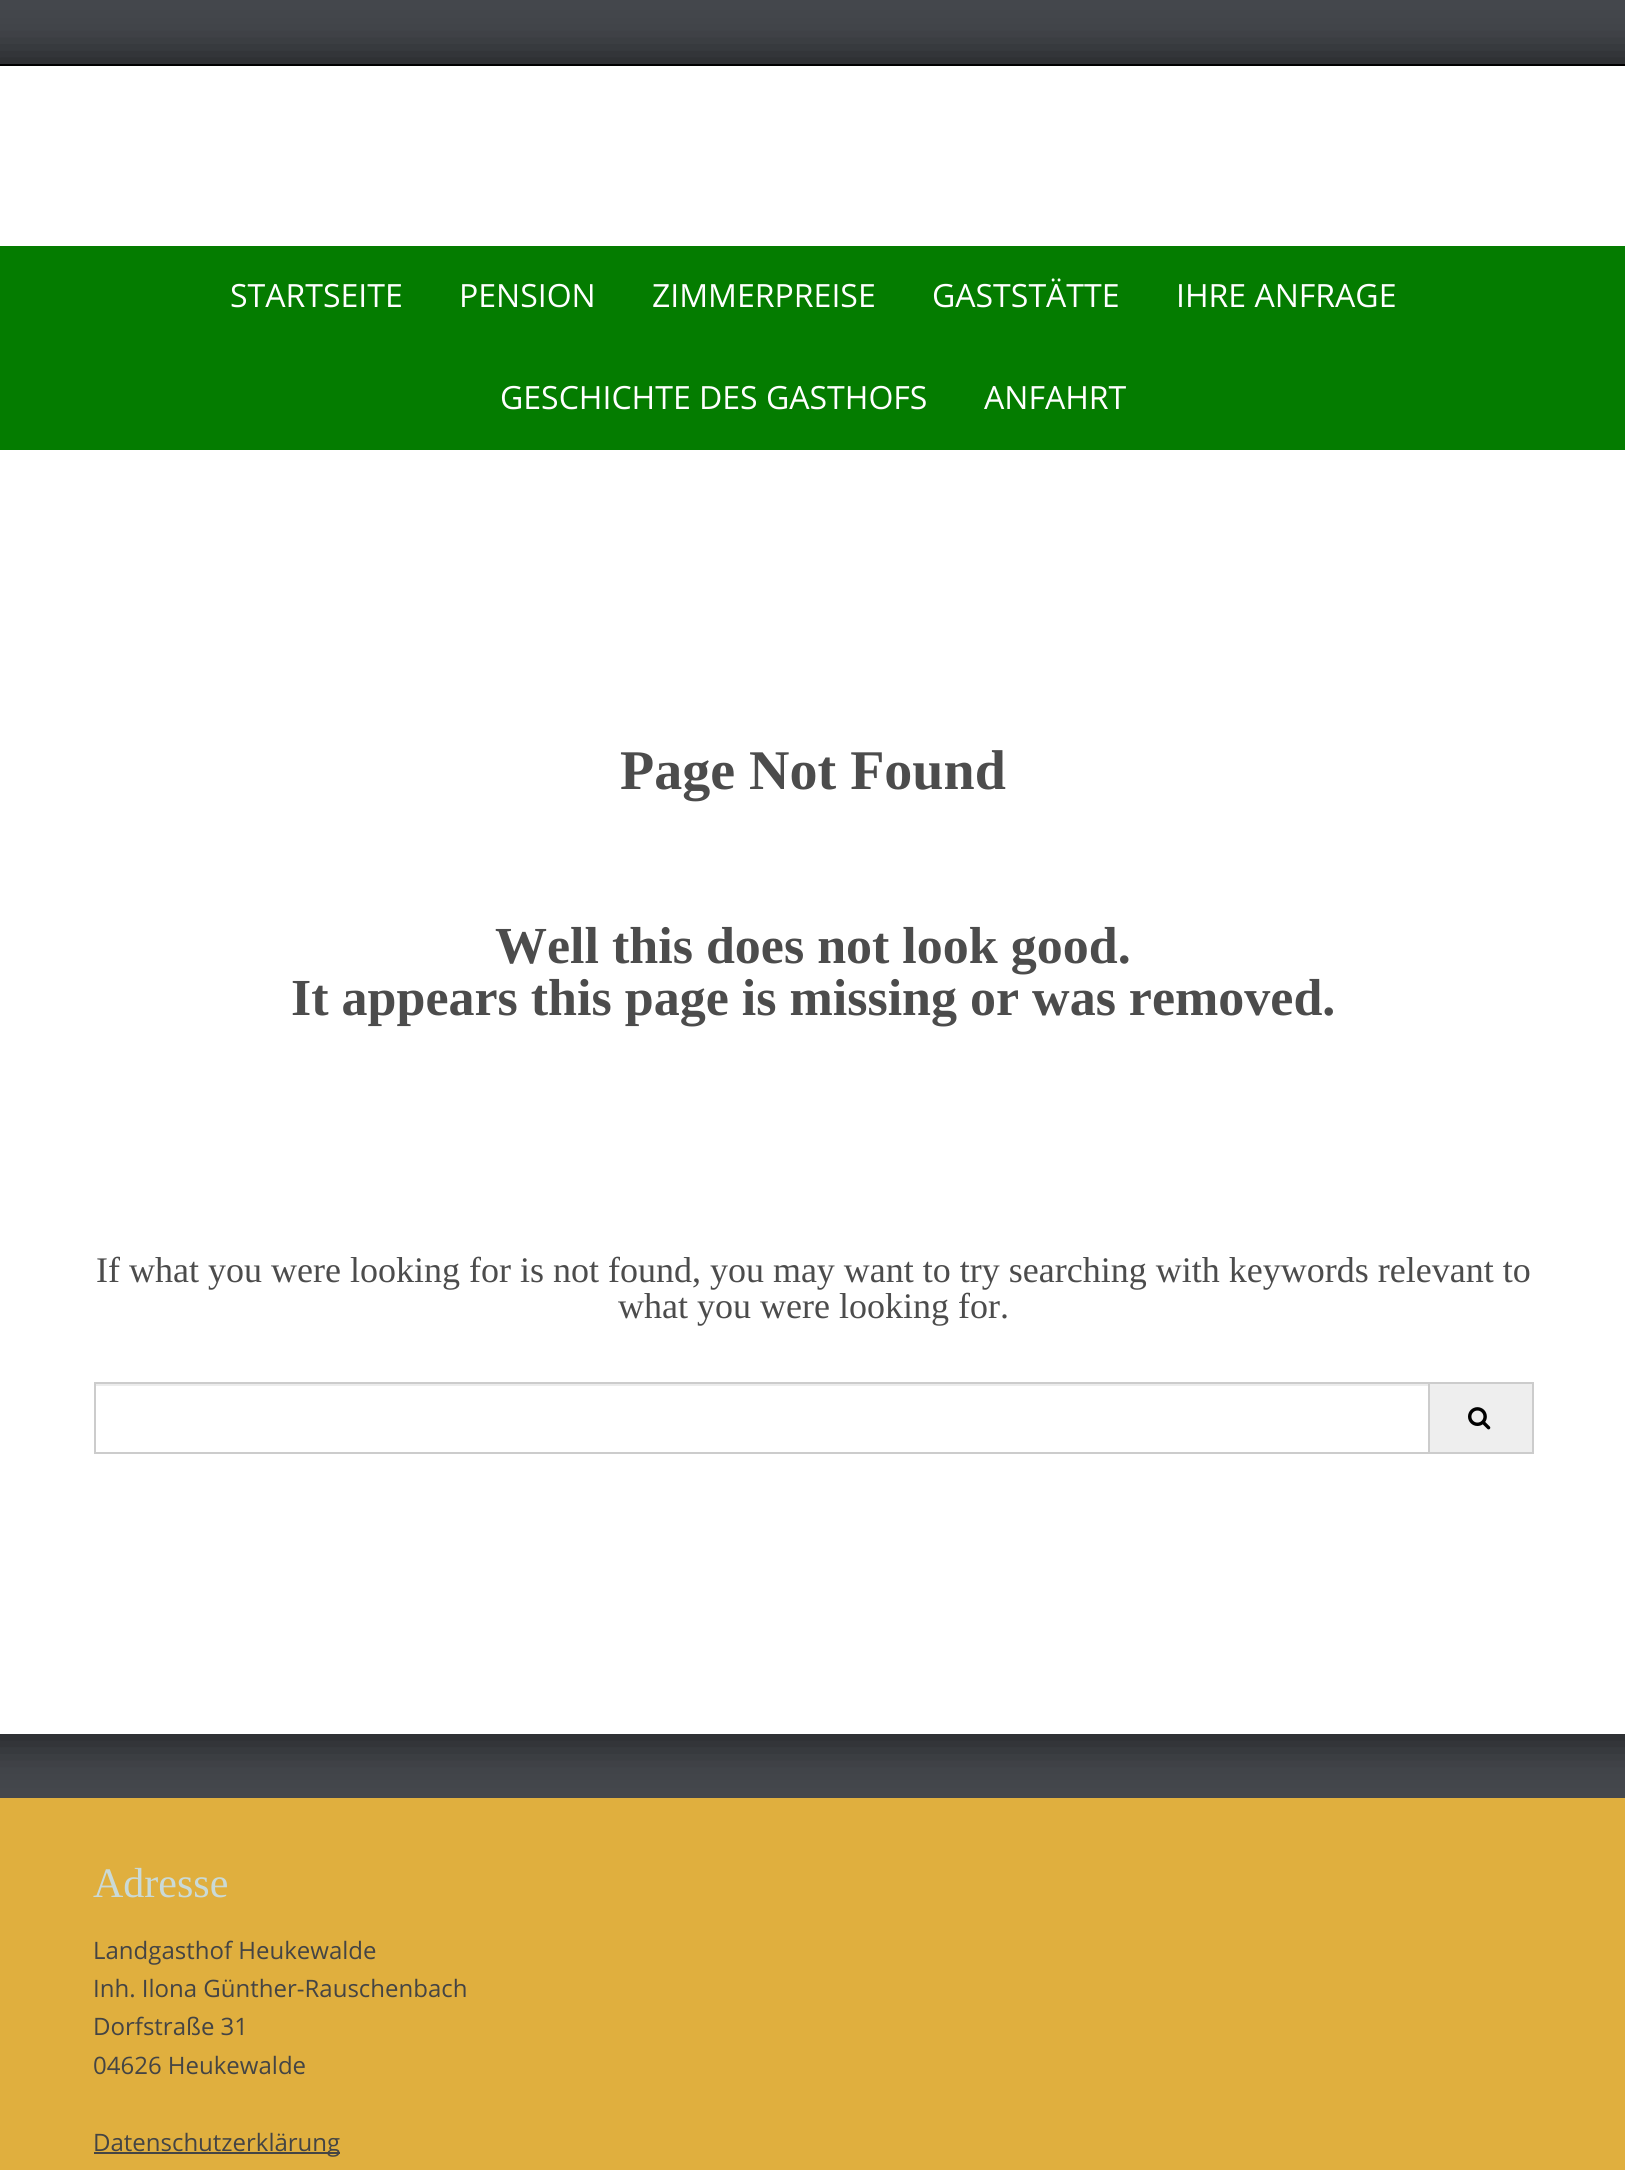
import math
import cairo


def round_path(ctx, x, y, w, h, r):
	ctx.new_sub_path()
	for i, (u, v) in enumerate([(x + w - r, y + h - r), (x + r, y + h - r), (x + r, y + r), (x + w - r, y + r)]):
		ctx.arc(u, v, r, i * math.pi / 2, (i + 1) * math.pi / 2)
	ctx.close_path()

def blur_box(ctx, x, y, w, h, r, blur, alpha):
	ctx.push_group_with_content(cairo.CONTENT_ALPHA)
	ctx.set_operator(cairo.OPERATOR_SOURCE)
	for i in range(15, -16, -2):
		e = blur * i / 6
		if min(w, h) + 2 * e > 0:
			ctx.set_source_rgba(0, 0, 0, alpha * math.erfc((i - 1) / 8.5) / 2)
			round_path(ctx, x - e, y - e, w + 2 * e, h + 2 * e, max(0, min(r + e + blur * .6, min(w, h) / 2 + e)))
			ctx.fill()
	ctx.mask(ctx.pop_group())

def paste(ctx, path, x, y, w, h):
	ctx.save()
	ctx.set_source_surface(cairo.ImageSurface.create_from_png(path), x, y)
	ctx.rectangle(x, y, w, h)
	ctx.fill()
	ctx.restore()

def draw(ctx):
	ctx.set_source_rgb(0.267, 0.278, 0.298)
	ctx.paint()
	ctx.set_source_rgb(0, 0, 0)
	blur_box(ctx, -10, 54, 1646, 1690, 0, 20, 0.5)
	ctx.set_source_rgb(0, 0, 0)
	ctx.rectangle(0, 64, 1625, 2)
	ctx.fill()
	ctx.set_source_rgb(1, 1, 1)
	ctx.rectangle(0, 66, 1625, 180)
	ctx.fill()
	ctx.set_source_rgb(0.016, 0.486, 0)
	ctx.rectangle(0, 246, 1625, 204)
	ctx.fill()
	ctx.select_font_face('Open Sans')
	ctx.set_font_size(32)
	ctx.set_source_rgb(1, 1, 1)
	for x, y, s in [
		(230, 307, 'STARTSEITE'),
		(459, 307, 'PENSION'),
		(652, 307, 'ZIMMERPREISE'),
		(932, 307, 'GASTSTÄTTE'),
		(1176, 307, 'IHRE ANFRAGE'),
		(500, 409, 'GESCHICHTE DES GASTHOFS'),
		(984, 409, 'ANFAHRT'),
	]:
		ctx.move_to(x, y)
		ctx.show_text(s)
	ctx.rectangle(0, 450, 1625, 1284)
	ctx.fill()
	ctx.select_font_face('Liberation Serif', cairo.FONT_SLANT_NORMAL, cairo.FONT_WEIGHT_BOLD)
	ctx.set_font_size(56)
	ctx.set_source_rgb(0.298, 0.298, 0.298)
	ctx.move_to(620, 789)
	ctx.show_text('Page Not Found')
	ctx.set_font_size(52)
	ctx.move_to(495, 963)
	ctx.show_text('Well this does not look good.')
	ctx.move_to(291, 1015)
	ctx.show_text('It appears this page is missing or was removed.')
	ctx.select_font_face('Liberation Serif')
	ctx.set_font_size(36)
	ctx.move_to(96, 1282)
	ctx.show_text('If what you were looking for is not found, you may want to try searching with keywords relevant to')
	ctx.move_to(618, 1318)
	ctx.show_text('what you were looking for.')
	ctx.set_source_rgb(0.933, 0.933, 0.933)
	ctx.rectangle(1430, 1384, 102, 68)
	ctx.fill()
	ctx.rectangle(1427, 1383, 106, 70)
	ctx.set_source_rgb(0.8, 0.8, 0.8)
	ctx.stroke()
	ctx.set_source_rgb(1, 1, 1)
	ctx.rectangle(1426, 1386, 2, 66)
	ctx.fill()
	ctx.set_source_rgb(0.925, 0.925, 0.925)
	ctx.rectangle(96, 1384, 1332, 2)
	ctx.fill()
	ctx.rectangle(95, 1383, 1334, 70)
	ctx.set_source_rgb(0.8, 0.8, 0.8)
	ctx.stroke()
	paste(ctx, 'media/1.png', 1468, 1407, 23, 23)
	ctx.set_source_rgb(0.878, 0.686, 0.243)
	ctx.rectangle(0, 1798, 1625, 372)
	ctx.fill()
	ctx.set_font_size(42)
	ctx.set_source_rgb(0.792, 0.855, 0.843)
	ctx.move_to(93, 1897)
	ctx.show_text('Adresse')
	ctx.select_font_face('Open Sans')
	ctx.set_font_size(24)
	ctx.set_source_rgb(0.267, 0.267, 0.267)
	for x, y, s in [
		(93, 1959, 'Landgasthof Heukewalde'),
		(93, 1997, 'Inh. Ilona Günther-Rauschenbach'),
		(93, 2035, 'Dorfstraße 31'),
		(93, 2074, '04626 Heukewalde'),
	]:
		ctx.move_to(x, y)
		ctx.show_text(s)
	ctx.rectangle(94, 2152, 246, 2)
	ctx.fill()
	ctx.move_to(93, 2151)
	ctx.show_text('Datenschutzerklärung')


surface = cairo.ImageSurface(cairo.FORMAT_RGB24, 1625, 2170)
ctx = cairo.Context(surface)
options = cairo.FontOptions()
options.set_hint_metrics(cairo.HINT_METRICS_OFF)
options.set_hint_style(cairo.HINT_STYLE_NONE)
ctx.set_font_options(options)
ctx.set_miter_limit(4)
draw(ctx)
surface.write_to_png('image.png')
